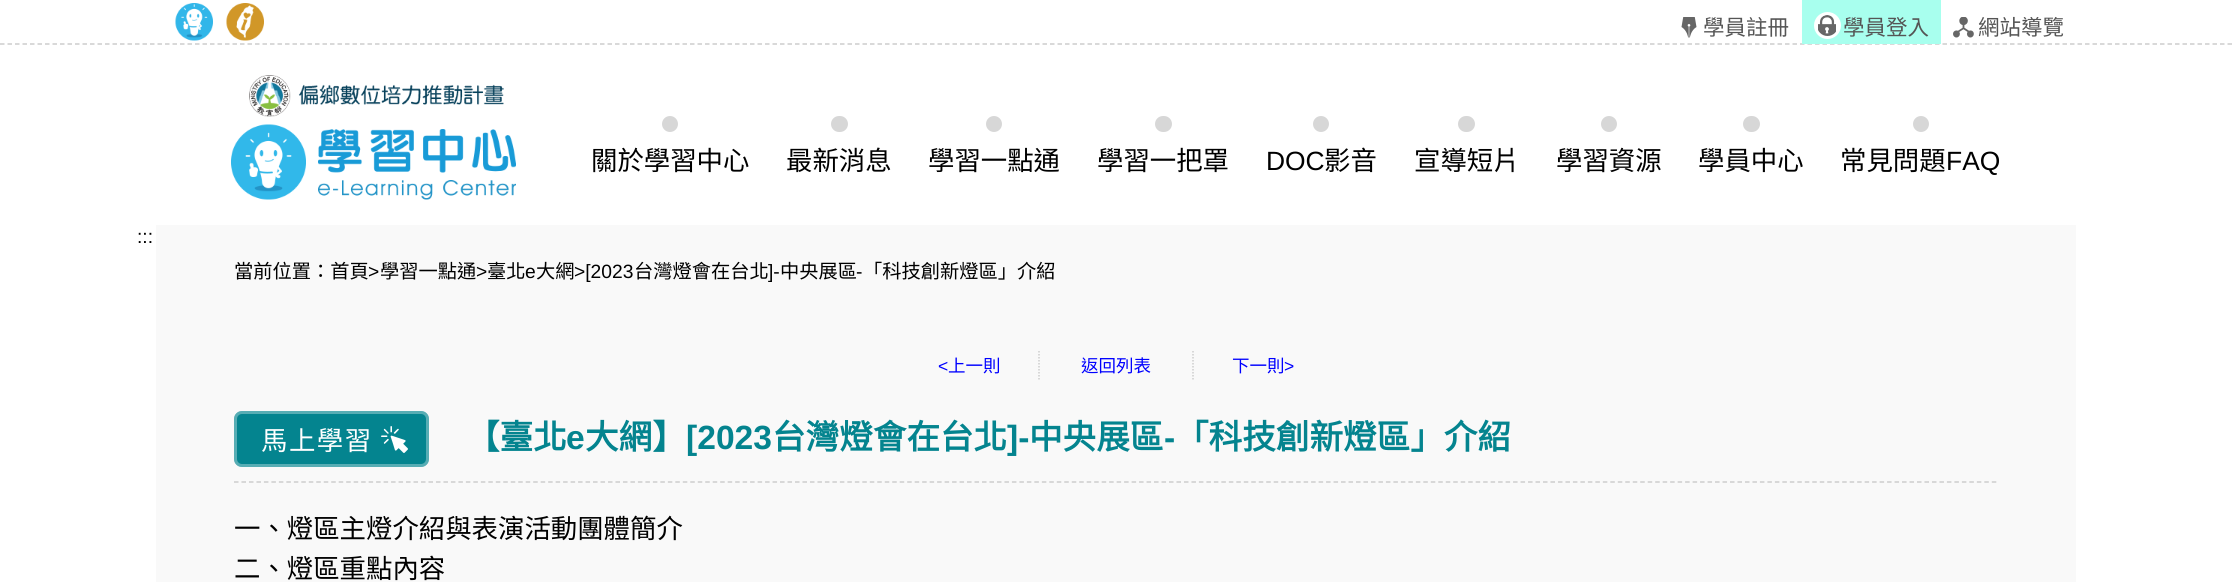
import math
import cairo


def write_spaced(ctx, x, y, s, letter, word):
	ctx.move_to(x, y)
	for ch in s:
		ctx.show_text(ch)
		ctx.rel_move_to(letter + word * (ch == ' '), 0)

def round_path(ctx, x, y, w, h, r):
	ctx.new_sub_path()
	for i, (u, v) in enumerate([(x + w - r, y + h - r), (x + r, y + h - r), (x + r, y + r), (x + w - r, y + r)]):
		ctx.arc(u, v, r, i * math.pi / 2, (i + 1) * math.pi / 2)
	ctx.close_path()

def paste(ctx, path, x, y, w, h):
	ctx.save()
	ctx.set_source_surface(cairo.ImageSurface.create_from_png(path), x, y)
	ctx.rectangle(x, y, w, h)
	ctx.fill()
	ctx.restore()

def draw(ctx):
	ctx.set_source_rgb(1, 1, 1)
	ctx.paint()
	ctx.new_path()
	ctx.move_to(0, 44)
	ctx.line_to(2232, 44)
	ctx.set_source_rgb(0.8, 0.8, 0.8)
	ctx.set_line_width(1.5)
	ctx.set_dash([4.5, 3])
	ctx.stroke()
	paste(ctx, 'media/1.png', 175, 3, 38, 38)
	paste(ctx, 'media/2.png', 226, 3, 38, 38)
	paste(ctx, 'media/3.png', 1681, 17, 16, 21)
	ctx.select_font_face('Noto Sans CJK TC')
	ctx.set_font_size(21.5)
	ctx.set_source_rgb(0.333, 0.333, 0.333)
	ctx.move_to(1703, 35)
	ctx.show_text('學員註冊')
	ctx.set_source_rgb(0.659, 1, 0.933)
	ctx.rectangle(1802, 0, 139, 44)
	ctx.fill()
	ctx.set_source_rgb(1, 1, 1)
	ctx.arc(1827.5, 25.5, 13.5, 0, 2 * math.pi)
	ctx.fill()
	paste(ctx, 'media/4.png', 1818, 15, 18, 21)
	ctx.set_source_rgb(0.333, 0.333, 0.333)
	ctx.move_to(1843, 35)
	ctx.show_text('學員登入')
	paste(ctx, 'media/5.png', 1953, 17, 21, 21)
	ctx.move_to(1978, 35)
	ctx.show_text('網站導覽')
	paste(ctx, 'media/6.png', 231, 75, 285, 125)
	ctx.set_source_rgb(0.843, 0.843, 0.843)
	ctx.arc(670, 124, 8, 0, 2 * math.pi)
	ctx.fill()
	ctx.set_font_size(26.4)
	ctx.set_source_rgb(0, 0, 0)
	ctx.move_to(591, 170)
	ctx.show_text('關於學習中心')
	ctx.set_source_rgb(0.843, 0.843, 0.843)
	round_path(ctx, 831, 116, 17, 16, 8)
	ctx.fill()
	ctx.set_source_rgb(0, 0, 0)
	ctx.move_to(786, 170)
	ctx.show_text('最新消息')
	ctx.set_source_rgb(0.843, 0.843, 0.843)
	ctx.new_path()
	ctx.arc(994, 124, 8, 0, 2 * math.pi)
	ctx.fill()
	ctx.set_source_rgb(0, 0, 0)
	ctx.move_to(928, 170)
	ctx.show_text('學習一點通')
	ctx.set_source_rgb(0.843, 0.843, 0.843)
	round_path(ctx, 1155, 116, 17, 16, 8)
	ctx.fill()
	ctx.set_source_rgb(0, 0, 0)
	ctx.move_to(1097, 170)
	ctx.show_text('學習一把罩')
	ctx.set_source_rgb(0.843, 0.843, 0.843)
	ctx.new_path()
	ctx.arc(1321, 124, 8, 0, 2 * math.pi)
	ctx.fill()
	ctx.select_font_face('Liberation Sans')
	ctx.set_source_rgb(0, 0, 0)
	ctx.move_to(1266, 170)
	ctx.show_text('DOC')
	ctx.select_font_face('Noto Sans CJK TC')
	ctx.move_to(1324, 170)
	ctx.show_text('影音')
	ctx.set_source_rgb(0.843, 0.843, 0.843)
	round_path(ctx, 1458, 116, 17, 16, 8)
	ctx.fill()
	ctx.set_source_rgb(0, 0, 0)
	ctx.move_to(1414, 170)
	ctx.show_text('宣導短片')
	ctx.set_source_rgb(0.843, 0.843, 0.843)
	ctx.new_path()
	ctx.arc(1609, 124, 8, 0, 2 * math.pi)
	ctx.fill()
	ctx.set_source_rgb(0, 0, 0)
	ctx.move_to(1556, 170)
	ctx.show_text('學習資源')
	ctx.set_source_rgb(0.843, 0.843, 0.843)
	round_path(ctx, 1743, 116, 17, 16, 8)
	ctx.fill()
	ctx.set_source_rgb(0, 0, 0)
	ctx.move_to(1698, 170)
	ctx.show_text('學員中心')
	ctx.set_source_rgb(0.843, 0.843, 0.843)
	ctx.new_path()
	ctx.arc(1921, 124, 8, 0, 2 * math.pi)
	ctx.fill()
	ctx.set_source_rgb(0, 0, 0)
	ctx.move_to(1840, 170)
	ctx.show_text('常見問題')
	ctx.select_font_face('Liberation Sans')
	ctx.move_to(1946, 170)
	ctx.show_text('FAQ')
	ctx.set_source_rgb(0.973, 0.973, 0.973)
	ctx.rectangle(156, 225, 1920, 357)
	ctx.fill()
	ctx.set_font_size(19.25)
	ctx.set_source_rgb(0, 0, 0)
	ctx.move_to(137, 243)
	ctx.show_text(':::')
	ctx.select_font_face('Noto Sans CJK TC')
	ctx.move_to(234, 278)
	ctx.show_text('當前位置：首頁')
	ctx.select_font_face('Liberation Sans')
	ctx.move_to(368, 278)
	ctx.show_text('>')
	ctx.select_font_face('Noto Sans CJK TC')
	ctx.move_to(380, 278)
	ctx.show_text('學習一點通')
	ctx.select_font_face('Liberation Sans')
	ctx.move_to(476, 278)
	ctx.show_text('>')
	ctx.select_font_face('Noto Sans CJK TC')
	ctx.move_to(487, 278)
	ctx.show_text('臺北')
	ctx.select_font_face('Liberation Sans')
	ctx.move_to(525, 278)
	ctx.show_text('e')
	ctx.select_font_face('Noto Sans CJK TC')
	ctx.move_to(536, 278)
	ctx.show_text('大網')
	ctx.select_font_face('Liberation Sans')
	ctx.move_to(574, 278)
	ctx.show_text('>[2023')
	ctx.select_font_face('Noto Sans CJK TC')
	ctx.move_to(634, 278)
	ctx.show_text('台灣燈會在台北')
	ctx.select_font_face('Liberation Sans')
	ctx.move_to(768, 278)
	ctx.show_text(']-')
	ctx.select_font_face('Noto Sans CJK TC')
	ctx.move_to(780, 278)
	ctx.show_text('中央展區')
	ctx.select_font_face('Liberation Sans')
	ctx.move_to(856, 278)
	ctx.show_text('-')
	ctx.select_font_face('Noto Sans CJK TC')
	ctx.move_to(863, 278)
	ctx.show_text('「科技創新燈區」介紹')
	ctx.new_path()
	ctx.move_to(1039, 351)
	ctx.line_to(1039, 381)
	ctx.set_source_rgb(0.8, 0.8, 0.8)
	ctx.set_dash([1.5, 1.5])
	ctx.stroke()
	ctx.select_font_face('Liberation Sans')
	ctx.set_font_size(17.5)
	ctx.set_source_rgb(0, 0, 1)
	ctx.move_to(938, 372)
	ctx.show_text('<')
	ctx.select_font_face('Noto Sans CJK TC')
	ctx.move_to(948, 372)
	ctx.show_text('上一則')
	ctx.move_to(1081, 372)
	ctx.show_text('返回列表')
	ctx.new_path()
	ctx.move_to(1193, 351)
	ctx.line_to(1193, 381)
	ctx.set_source_rgb(0.8, 0.8, 0.8)
	ctx.stroke()
	ctx.set_source_rgb(0, 0, 1)
	ctx.move_to(1232, 372)
	ctx.show_text('下一則')
	ctx.select_font_face('Liberation Sans')
	ctx.move_to(1284, 372)
	ctx.show_text('>')
	ctx.new_path()
	ctx.move_to(234, 482)
	ctx.line_to(1998, 482)
	ctx.set_source_rgb(0.8, 0.8, 0.8)
	ctx.set_dash([4.5, 2.98])
	ctx.stroke()
	ctx.set_source_rgb(0.016, 0.518, 0.561)
	round_path(ctx, 234, 411, 195, 56, 8)
	ctx.fill()
	paste(ctx, 'media/7.png', 381, 426, 27, 27)
	round_path(ctx, 235.5, 412.5, 192, 53, 6.5)
	ctx.set_source_rgba(1, 1, 1, 0.33)
	ctx.set_line_width(3)
	ctx.set_dash([])
	ctx.stroke()
	ctx.select_font_face('Noto Sans CJK TC')
	ctx.set_font_size(26.4)
	ctx.set_source_rgb(1, 1, 1)
	write_spaced(ctx, 261, 450, '馬上學習', 1.5, 0)
	ctx.select_font_face('Noto Sans CJK TC', cairo.FONT_SLANT_NORMAL, cairo.FONT_WEIGHT_BOLD)
	ctx.set_font_size(33.6)
	ctx.set_source_rgb(0.016, 0.518, 0.561)
	ctx.move_to(466, 449)
	ctx.show_text('【臺北')
	ctx.select_font_face('Liberation Sans', cairo.FONT_SLANT_NORMAL, cairo.FONT_WEIGHT_BOLD)
	ctx.move_to(566, 449)
	ctx.show_text('e')
	ctx.select_font_face('Noto Sans CJK TC', cairo.FONT_SLANT_NORMAL, cairo.FONT_WEIGHT_BOLD)
	ctx.move_to(585, 449)
	ctx.show_text('大網】')
	ctx.select_font_face('Liberation Sans', cairo.FONT_SLANT_NORMAL, cairo.FONT_WEIGHT_BOLD)
	ctx.move_to(686, 449)
	ctx.show_text('[2023')
	ctx.select_font_face('Noto Sans CJK TC', cairo.FONT_SLANT_NORMAL, cairo.FONT_WEIGHT_BOLD)
	ctx.move_to(772, 449)
	ctx.show_text('台灣燈會在台北')
	ctx.select_font_face('Liberation Sans', cairo.FONT_SLANT_NORMAL, cairo.FONT_WEIGHT_BOLD)
	ctx.move_to(1007, 449)
	ctx.show_text(']-')
	ctx.select_font_face('Noto Sans CJK TC', cairo.FONT_SLANT_NORMAL, cairo.FONT_WEIGHT_BOLD)
	ctx.move_to(1029, 449)
	ctx.show_text('中央展區')
	ctx.select_font_face('Liberation Sans', cairo.FONT_SLANT_NORMAL, cairo.FONT_WEIGHT_BOLD)
	ctx.move_to(1164, 449)
	ctx.show_text('-')
	ctx.select_font_face('Noto Sans CJK TC', cairo.FONT_SLANT_NORMAL, cairo.FONT_WEIGHT_BOLD)
	ctx.move_to(1175, 449)
	ctx.show_text('「科技創新燈區」介紹')
	ctx.select_font_face('Noto Sans CJK TC')
	ctx.set_font_size(26.4)
	ctx.set_source_rgb(0, 0, 0)
	ctx.move_to(234, 538)
	ctx.show_text('一、燈區主燈介紹與表演活動團體簡介')
	ctx.move_to(234, 578)
	ctx.show_text('二、燈區重點內容')


surface = cairo.ImageSurface(cairo.FORMAT_RGB24, 2232, 582)
ctx = cairo.Context(surface)
options = cairo.FontOptions()
options.set_hint_metrics(cairo.HINT_METRICS_OFF)
options.set_hint_style(cairo.HINT_STYLE_NONE)
ctx.set_font_options(options)
ctx.set_miter_limit(4)
draw(ctx)
surface.write_to_png('image.png')
